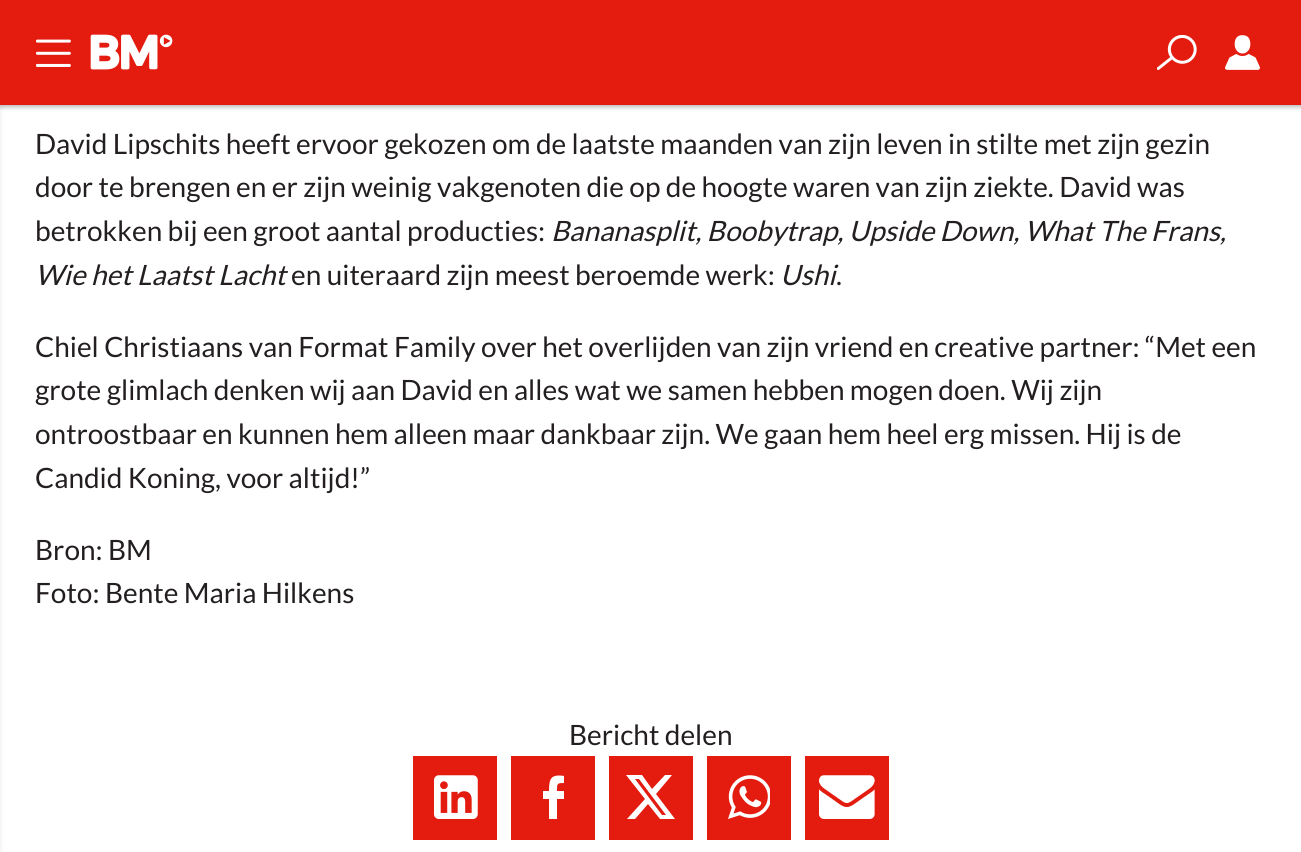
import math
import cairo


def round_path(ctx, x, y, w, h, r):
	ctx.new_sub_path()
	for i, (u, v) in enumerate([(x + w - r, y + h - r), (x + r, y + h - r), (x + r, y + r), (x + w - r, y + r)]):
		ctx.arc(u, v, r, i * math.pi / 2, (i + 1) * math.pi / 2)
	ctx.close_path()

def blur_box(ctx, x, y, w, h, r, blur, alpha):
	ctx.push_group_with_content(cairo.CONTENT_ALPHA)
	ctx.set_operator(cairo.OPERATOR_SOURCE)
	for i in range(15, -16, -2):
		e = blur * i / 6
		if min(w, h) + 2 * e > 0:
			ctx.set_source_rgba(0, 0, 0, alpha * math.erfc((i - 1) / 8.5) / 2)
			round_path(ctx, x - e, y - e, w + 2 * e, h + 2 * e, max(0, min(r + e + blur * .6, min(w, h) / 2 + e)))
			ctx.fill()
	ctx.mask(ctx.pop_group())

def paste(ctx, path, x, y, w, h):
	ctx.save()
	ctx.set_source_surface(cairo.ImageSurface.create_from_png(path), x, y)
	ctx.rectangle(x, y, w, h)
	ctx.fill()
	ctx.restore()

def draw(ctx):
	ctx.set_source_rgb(1, 1, 1)
	ctx.paint()
	ctx.set_source_rgb(0, 0, 0)
	blur_box(ctx, -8, 2, 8, 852, 0, 2.5, 0.1)
	blur_box(ctx, 0, 2, 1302, 105, 0, 2, 0.06)
	blur_box(ctx, 0, 2, 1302, 105, 0, 2.5, 0.1)
	blur_box(ctx, 0, 2, 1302, 105, 0, 2, 0.06)
	blur_box(ctx, 0, 2, 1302, 105, 0, 2.5, 0.1)
	ctx.set_source_rgb(0.89, 0.11, 0.059)
	ctx.rectangle(0, 0, 1301, 105)
	ctx.fill()
	paste(ctx, 'media/1.png', 36, 39, 35, 28)
	paste(ctx, 'media/2.png', 90, 34, 83, 36)
	paste(ctx, 'media/3.png', 1157, 35, 40, 35)
	paste(ctx, 'media/4.png', 1225, 35, 35, 35)
	ctx.select_font_face('Lato')
	ctx.set_font_size(28)
	ctx.set_source_rgb(0.137, 0.122, 0.125)
	for x, y, s in [
		(35, 154, 'David Lipschits heeft ervoor gekozen om de laatste maanden van zijn leven in stilte met zijn gezin'),
		(35, 197, 'door te brengen en er zijn weinig vakgenoten die op de hoogte waren van zijn ziekte. David was'),
		(35, 241, 'betrokken bij een groot aantal producties:'),
	]:
		ctx.move_to(x, y)
		ctx.show_text(s)
	ctx.select_font_face('Lato', cairo.FONT_SLANT_ITALIC)
	ctx.move_to(551, 241)
	ctx.show_text('Bananasplit, Boobytrap, Upside Down, What The Frans,')
	ctx.move_to(35, 285)
	ctx.show_text('Wie het Laatst Lacht')
	ctx.select_font_face('Lato')
	ctx.move_to(291, 285)
	ctx.show_text('en uiteraard zijn meest beroemde werk:')
	ctx.select_font_face('Lato', cairo.FONT_SLANT_ITALIC)
	ctx.move_to(780, 285)
	ctx.show_text('Ushi')
	ctx.select_font_face('Lato')
	for x, y, s in [
		(836, 285, '.'),
		(35, 357, 'Chiel Christiaans van Format Family over het overlijden van zijn vriend en creative partner: “Met een'),
		(35, 400, 'grote glimlach denken wij aan David en alles wat we samen hebben mogen doen. Wij zijn'),
		(35, 444, 'ontroostbaar en kunnen hem alleen maar dankbaar zijn. We gaan hem heel erg missen. Hij is de'),
		(35, 488, 'Candid Koning, voor altijd!”'),
		(35, 560, 'Bron: BM'),
		(35, 603, 'Foto: Bente Maria Hilkens'),
		(569, 745, 'Bericht delen'),
	]:
		ctx.move_to(x, y)
		ctx.show_text(s)
	ctx.set_source_rgb(0.89, 0.11, 0.059)
	ctx.rectangle(413, 756, 84, 84)
	ctx.fill()
	paste(ctx, 'media/5.png', 434, 775, 44, 44)
	ctx.rectangle(511, 756, 84, 84)
	ctx.fill()
	ctx.save()
	ctx.rectangle(543, 775, 21, 44)
	ctx.clip()
	ctx.set_source_rgb(1, 1, 1)
	ctx.new_path()
	ctx.move_to(565, 783)
	ctx.curve_to(557, 783, 557, 783, 557, 791)
	ctx.line_to(565, 791)
	ctx.line_to(564, 799)
	ctx.line_to(557, 799)
	ctx.line_to(557, 819)
	ctx.line_to(549, 819)
	ctx.line_to(549, 799)
	ctx.line_to(542, 799)
	ctx.line_to(542, 791)
	ctx.line_to(549, 791)
	ctx.curve_to(549, 778, 551, 774, 565, 776)
	ctx.close_path()
	ctx.fill()
	ctx.restore()
	ctx.rectangle(609, 756, 84, 84)
	ctx.fill()
	ctx.set_source_rgb(1, 1, 1)
	ctx.new_path()
	ctx.move_to(665, 775)
	ctx.line_to(672, 775)
	ctx.line_to(656, 794)
	ctx.line_to(675, 819)
	ctx.line_to(660, 819)
	ctx.line_to(648, 804)
	ctx.line_to(635, 819)
	ctx.line_to(627, 819)
	ctx.line_to(645, 799)
	ctx.line_to(626, 775)
	ctx.line_to(642, 775)
	ctx.line_to(652, 789)
	ctx.close_path()
	ctx.move_to(662, 815)
	ctx.line_to(666, 815)
	ctx.line_to(639, 779)
	ctx.line_to(635, 779)
	ctx.close_path()
	ctx.fill()
	ctx.set_source_rgb(0.89, 0.11, 0.059)
	ctx.rectangle(707, 756, 84, 84)
	ctx.fill()
	paste(ctx, 'media/6.png', 728, 775, 42, 44)
	ctx.rectangle(805, 756, 84, 84)
	ctx.fill()
	paste(ctx, 'media/7.png', 819, 775, 56, 44)


surface = cairo.ImageSurface(cairo.FORMAT_RGB24, 1301, 852)
ctx = cairo.Context(surface)
options = cairo.FontOptions()
options.set_hint_metrics(cairo.HINT_METRICS_OFF)
options.set_hint_style(cairo.HINT_STYLE_NONE)
ctx.set_font_options(options)
ctx.set_miter_limit(4)
draw(ctx)
surface.write_to_png('image.png')
